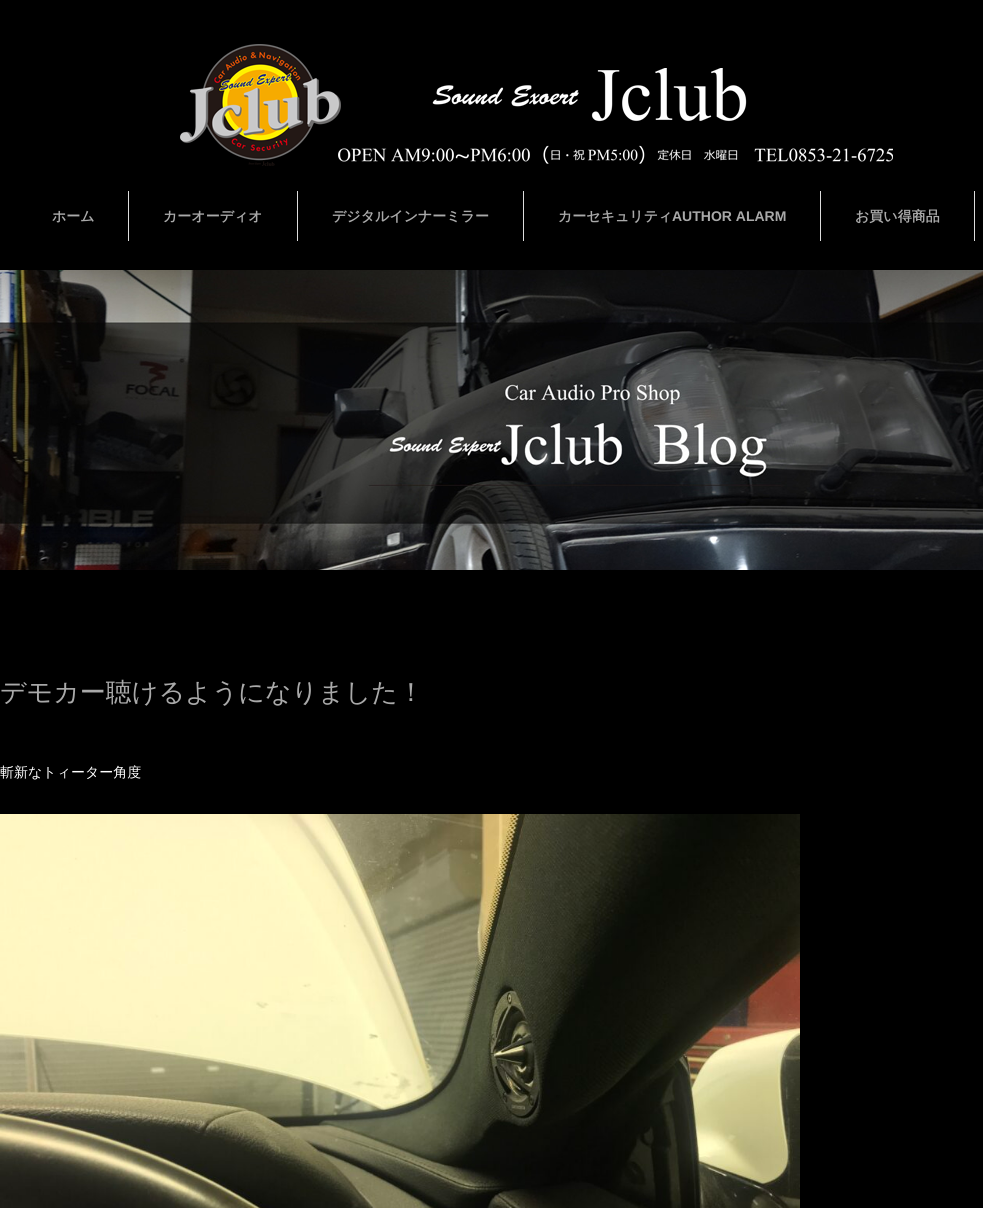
import math
import cairo


def paste(ctx, path, x, y, w, h):
	ctx.save()
	ctx.set_source_surface(cairo.ImageSurface.create_from_png(path), x, y)
	ctx.rectangle(x, y, w, h)
	ctx.fill()
	ctx.restore()

def draw(ctx):
	ctx.set_source_rgb(0, 0, 0)
	ctx.paint()
	paste(ctx, 'media/1.png', 180, 44, 713, 122)
	ctx.select_font_face('WenQuanYi Zen Hei', cairo.FONT_SLANT_NORMAL, cairo.FONT_WEIGHT_BOLD)
	ctx.set_font_size(14)
	ctx.set_source_rgb(0.663, 0.663, 0.663)
	ctx.move_to(52, 221)
	ctx.show_text('ホーム')
	ctx.set_source_rgb(0.867, 0.867, 0.867)
	ctx.rectangle(128, 191, 1, 50)
	ctx.fill()
	ctx.set_source_rgb(0.663, 0.663, 0.663)
	ctx.move_to(163, 221)
	ctx.show_text('カーオーディオ')
	ctx.set_source_rgb(0.867, 0.867, 0.867)
	ctx.rectangle(297, 191, 1, 50)
	ctx.fill()
	ctx.set_source_rgb(0.663, 0.663, 0.663)
	ctx.move_to(332, 221)
	ctx.show_text('デジタルインナーミラー')
	ctx.set_source_rgb(0.867, 0.867, 0.867)
	ctx.rectangle(523, 191, 1, 50)
	ctx.fill()
	ctx.set_source_rgb(0.663, 0.663, 0.663)
	ctx.move_to(558, 221)
	ctx.show_text('カーセキュリティ')
	ctx.select_font_face('Liberation Sans', cairo.FONT_SLANT_NORMAL, cairo.FONT_WEIGHT_BOLD)
	ctx.move_to(672, 221)
	ctx.show_text('AUTHOR ALARM')
	ctx.set_source_rgb(0.867, 0.867, 0.867)
	ctx.rectangle(820, 191, 1, 50)
	ctx.fill()
	ctx.select_font_face('WenQuanYi Zen Hei', cairo.FONT_SLANT_NORMAL, cairo.FONT_WEIGHT_BOLD)
	ctx.set_source_rgb(0.663, 0.663, 0.663)
	ctx.move_to(855, 221)
	ctx.show_text('お買い得商品')
	ctx.set_source_rgb(0.867, 0.867, 0.867)
	ctx.rectangle(974, 191, 1, 50)
	ctx.fill()
	paste(ctx, 'media/2.png', 0, 270, 983, 300)
	ctx.select_font_face('WenQuanYi Zen Hei Medium')
	ctx.set_font_size(26)
	ctx.set_source_rgb(0.663, 0.663, 0.663)
	ctx.move_to(0, 701)
	ctx.show_text('デモカー聴けるようになりました！')
	ctx.set_font_size(14)
	ctx.set_source_rgb(1, 1, 1)
	ctx.move_to(0, 777)
	ctx.show_text('斬新なトィーター角度')
	paste(ctx, 'media/3.png', 0, 814, 800, 394)


surface = cairo.ImageSurface(cairo.FORMAT_RGB24, 983, 1208)
ctx = cairo.Context(surface)
options = cairo.FontOptions()
options.set_hint_metrics(cairo.HINT_METRICS_OFF)
options.set_hint_style(cairo.HINT_STYLE_NONE)
ctx.set_font_options(options)
ctx.set_miter_limit(4)
draw(ctx)
surface.write_to_png('image.png')
